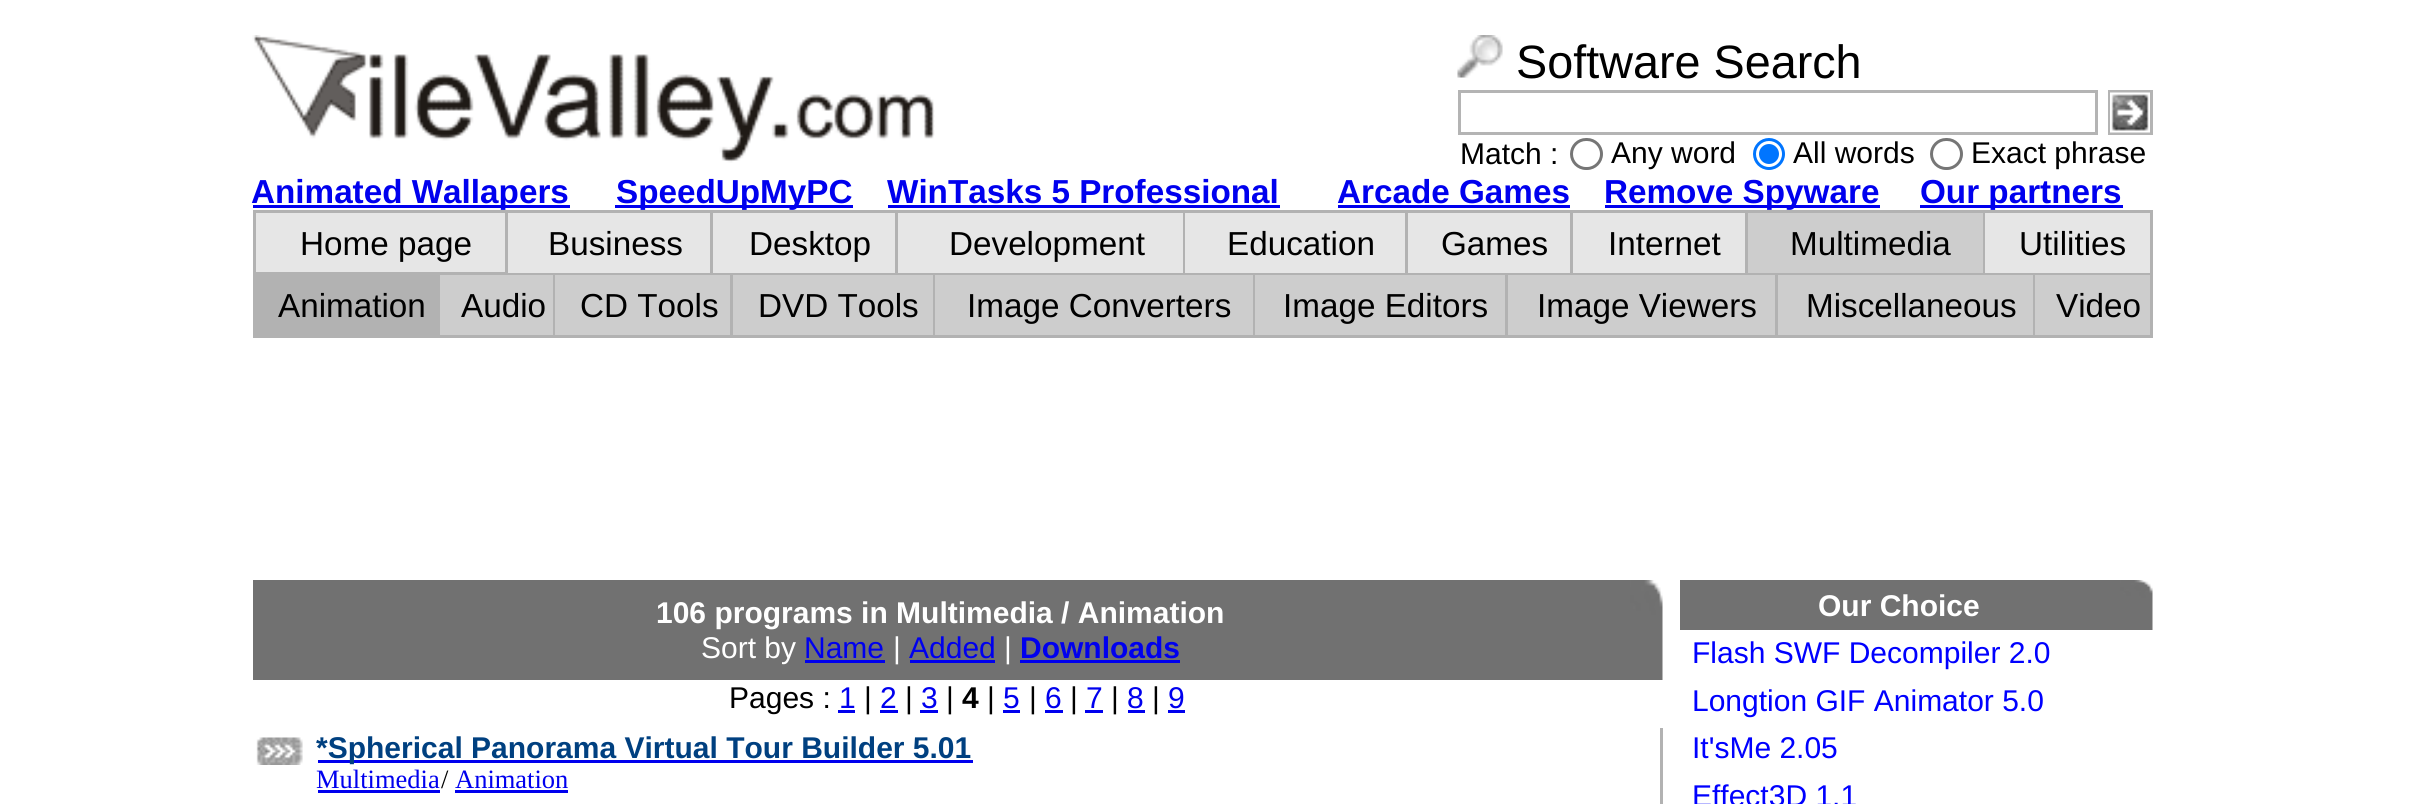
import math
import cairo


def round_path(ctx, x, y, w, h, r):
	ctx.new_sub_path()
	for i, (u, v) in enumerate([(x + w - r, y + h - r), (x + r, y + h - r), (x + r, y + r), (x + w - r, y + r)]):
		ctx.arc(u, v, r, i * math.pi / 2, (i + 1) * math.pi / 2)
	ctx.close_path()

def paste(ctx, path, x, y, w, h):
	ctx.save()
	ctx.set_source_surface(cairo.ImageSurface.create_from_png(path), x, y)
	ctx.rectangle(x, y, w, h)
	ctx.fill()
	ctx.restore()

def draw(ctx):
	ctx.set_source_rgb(1, 1, 1)
	ctx.paint()
	paste(ctx, 'media/1.png', 252, 35, 683, 128)
	paste(ctx, 'media/2.png', 1457, 35, 46, 43)
	ctx.select_font_face('Liberation Sans')
	ctx.set_font_size(46.75)
	ctx.set_source_rgb(0, 0, 0)
	ctx.move_to(1516, 78)
	ctx.show_text('Software Search')
	ctx.rectangle(1459.5, 91.5, 637, 42)
	ctx.set_source_rgb(0.706, 0.706, 0.706)
	ctx.set_line_width(3)
	ctx.stroke()
	ctx.rectangle(2109.5, 91.5, 42, 42)
	ctx.stroke()
	paste(ctx, 'media/3.png', 2110, 92, 40, 41)
	ctx.set_font_size(30)
	ctx.set_source_rgb(0, 0, 0)
	ctx.move_to(1460, 164)
	ctx.show_text('Match :')
	round_path(ctx, 1571.5, 139.5, 30, 29, 14.5)
	ctx.set_source_rgb(0.463, 0.463, 0.463)
	ctx.stroke()
	ctx.set_source_rgb(0, 0, 0)
	ctx.move_to(1611, 163)
	ctx.show_text('Any word')
	ctx.new_path()
	ctx.arc(1769, 154, 14.5, 0, 2 * math.pi)
	ctx.set_source_rgb(0, 0.459, 1)
	ctx.stroke()
	ctx.arc(1769, 154, 10, 0, 2 * math.pi)
	ctx.fill()
	ctx.set_source_rgb(0, 0, 0)
	ctx.move_to(1793, 163)
	ctx.show_text('All words')
	round_path(ctx, 1931.5, 139.5, 30, 29, 14.5)
	ctx.set_source_rgb(0.463, 0.463, 0.463)
	ctx.stroke()
	ctx.set_source_rgb(0, 0, 0)
	ctx.move_to(1971, 163)
	ctx.show_text('Exact phrase')
	ctx.set_source_rgb(0, 0, 0.933)
	ctx.rectangle(253, 205, 317, 3)
	ctx.fill()
	ctx.select_font_face('Liberation Sans', cairo.FONT_SLANT_NORMAL, cairo.FONT_WEIGHT_BOLD)
	ctx.set_font_size(33.25)
	ctx.move_to(251, 203)
	ctx.show_text('Animated Wallapers')
	ctx.rectangle(615, 205, 238, 3)
	ctx.fill()
	ctx.move_to(616, 203)
	ctx.show_text('SpeedUpMyPC')
	ctx.move_to(887, 203)
	ctx.show_text('WinTasks 5 Professional')
	ctx.rectangle(888, 205, 392, 3)
	ctx.fill()
	ctx.move_to(1337, 203)
	ctx.show_text('Arcade Games')
	ctx.rectangle(1338, 205, 232, 3)
	ctx.fill()
	ctx.rectangle(1605, 205, 275, 3)
	ctx.fill()
	ctx.move_to(1604, 203)
	ctx.show_text('Remove Spyware')
	ctx.rectangle(1920, 205, 203, 3)
	ctx.fill()
	ctx.move_to(1920, 203)
	ctx.show_text('Our partners')
	ctx.set_source_rgb(0.902, 0.902, 0.902)
	ctx.rectangle(254.5, 211.5, 252, 62)
	ctx.fill_preserve()
	ctx.set_source_rgb(0.698, 0.698, 0.698)
	ctx.stroke()
	ctx.select_font_face('Liberation Sans')
	ctx.set_source_rgb(0, 0, 0)
	ctx.move_to(300, 255)
	ctx.show_text('Home page')
	ctx.set_source_rgb(0.902, 0.902, 0.902)
	ctx.rectangle(508, 213, 202, 60)
	ctx.fill()
	ctx.set_source_rgb(0.698, 0.698, 0.698)
	ctx.rectangle(508, 210, 1645, 3)
	ctx.rectangle(710, 210, 3, 65)
	ctx.rectangle(508, 273, 205, 2)
	ctx.fill()
	ctx.set_source_rgb(0, 0, 0)
	ctx.move_to(548, 255)
	ctx.show_text('Business')
	ctx.set_source_rgb(0.902, 0.902, 0.902)
	ctx.rectangle(713, 213, 182, 60)
	ctx.fill()
	ctx.set_source_rgb(0.698, 0.698, 0.698)
	ctx.rectangle(895, 210, 3, 65)
	ctx.rectangle(713, 273, 185, 2)
	ctx.fill()
	ctx.set_source_rgb(0, 0, 0)
	ctx.move_to(749, 255)
	ctx.show_text('Desktop')
	ctx.set_source_rgb(0.902, 0.902, 0.902)
	ctx.rectangle(898, 213, 285, 60)
	ctx.fill()
	ctx.set_source_rgb(0.698, 0.698, 0.698)
	ctx.rectangle(1183, 210, 2, 65)
	ctx.rectangle(898, 273, 287, 2)
	ctx.fill()
	ctx.set_source_rgb(0, 0, 0)
	ctx.move_to(949, 255)
	ctx.show_text('Development')
	ctx.set_source_rgb(0.902, 0.902, 0.902)
	ctx.rectangle(1185, 213, 220, 60)
	ctx.fill()
	ctx.set_source_rgb(0.698, 0.698, 0.698)
	ctx.rectangle(1405, 210, 3, 65)
	ctx.rectangle(1185, 273, 223, 2)
	ctx.fill()
	ctx.set_source_rgb(0, 0, 0)
	ctx.move_to(1227, 255)
	ctx.show_text('Education')
	ctx.set_source_rgb(0.902, 0.902, 0.902)
	ctx.rectangle(1408, 213, 162, 60)
	ctx.fill()
	ctx.set_source_rgb(0.698, 0.698, 0.698)
	ctx.rectangle(1570, 210, 3, 65)
	ctx.rectangle(1408, 273, 165, 2)
	ctx.fill()
	ctx.set_source_rgb(0, 0, 0)
	ctx.move_to(1441, 255)
	ctx.show_text('Games')
	ctx.set_source_rgb(0.902, 0.902, 0.902)
	ctx.rectangle(1573, 213, 172, 60)
	ctx.fill()
	ctx.set_source_rgb(0.698, 0.698, 0.698)
	ctx.rectangle(1745, 210, 3, 65)
	ctx.rectangle(1573, 273, 175, 2)
	ctx.fill()
	ctx.set_source_rgb(0, 0, 0)
	ctx.move_to(1608, 255)
	ctx.show_text('Internet')
	ctx.set_source_rgb(0.804, 0.804, 0.804)
	ctx.rectangle(1748, 213, 235, 60)
	ctx.fill()
	ctx.set_source_rgb(0.698, 0.698, 0.698)
	ctx.rectangle(1983, 210, 2, 65)
	ctx.rectangle(1748, 273, 237, 2)
	ctx.fill()
	ctx.set_source_rgb(0, 0, 0)
	ctx.move_to(1790, 255)
	ctx.show_text('Multimedia')
	ctx.set_source_rgb(0.902, 0.902, 0.902)
	ctx.rectangle(1985, 213, 165, 60)
	ctx.fill()
	ctx.set_source_rgb(0.698, 0.698, 0.698)
	ctx.rectangle(2150, 210, 3, 128)
	ctx.rectangle(1985, 273, 168, 2)
	ctx.fill()
	ctx.set_source_rgb(0, 0, 0)
	ctx.move_to(2019, 255)
	ctx.show_text('Utilities')
	ctx.set_source_rgb(0.698, 0.698, 0.698)
	ctx.rectangle(253, 275, 187, 63)
	ctx.fill()
	ctx.set_source_rgb(0, 0, 0)
	ctx.move_to(278, 317)
	ctx.show_text('Animation')
	ctx.set_source_rgb(0.804, 0.804, 0.804)
	ctx.rectangle(440, 275, 113, 60)
	ctx.fill()
	ctx.set_source_rgb(0.698, 0.698, 0.698)
	ctx.rectangle(553, 275, 2, 63)
	ctx.rectangle(440, 335, 115, 3)
	ctx.fill()
	ctx.set_source_rgb(0, 0, 0)
	ctx.move_to(461, 317)
	ctx.show_text('Audio')
	ctx.set_source_rgb(0.804, 0.804, 0.804)
	ctx.rectangle(555, 275, 175, 60)
	ctx.fill()
	ctx.set_source_rgb(0.698, 0.698, 0.698)
	ctx.rectangle(730, 275, 3, 63)
	ctx.rectangle(555, 335, 178, 3)
	ctx.fill()
	ctx.set_source_rgb(0, 0, 0)
	ctx.move_to(580, 317)
	ctx.show_text('CD Tools')
	ctx.set_source_rgb(0.804, 0.804, 0.804)
	ctx.rectangle(733, 275, 200, 60)
	ctx.fill()
	ctx.set_source_rgb(0.698, 0.698, 0.698)
	ctx.rectangle(933, 275, 2, 63)
	ctx.rectangle(733, 335, 202, 3)
	ctx.fill()
	ctx.set_source_rgb(0, 0, 0)
	ctx.move_to(758, 317)
	ctx.show_text('DVD Tools')
	ctx.set_source_rgb(0.804, 0.804, 0.804)
	ctx.rectangle(935, 275, 318, 60)
	ctx.fill()
	ctx.set_source_rgb(0.698, 0.698, 0.698)
	ctx.rectangle(1253, 275, 2, 63)
	ctx.rectangle(935, 335, 320, 3)
	ctx.fill()
	ctx.set_source_rgb(0, 0, 0)
	ctx.move_to(967, 317)
	ctx.show_text('Image Converters')
	ctx.set_source_rgb(0.804, 0.804, 0.804)
	ctx.rectangle(1255, 275, 250, 60)
	ctx.fill()
	ctx.set_source_rgb(0.698, 0.698, 0.698)
	ctx.rectangle(1505, 275, 3, 63)
	ctx.rectangle(1255, 335, 253, 3)
	ctx.fill()
	ctx.set_source_rgb(0, 0, 0)
	ctx.move_to(1283, 317)
	ctx.show_text('Image Editors')
	ctx.set_source_rgb(0.804, 0.804, 0.804)
	ctx.rectangle(1508, 275, 267, 60)
	ctx.fill()
	ctx.set_source_rgb(0.698, 0.698, 0.698)
	ctx.rectangle(1775, 275, 3, 63)
	ctx.rectangle(1508, 335, 270, 3)
	ctx.fill()
	ctx.set_source_rgb(0, 0, 0)
	ctx.move_to(1537, 317)
	ctx.show_text('Image Viewers')
	ctx.set_source_rgb(0.804, 0.804, 0.804)
	ctx.rectangle(1778, 275, 255, 60)
	ctx.fill()
	ctx.set_source_rgb(0.698, 0.698, 0.698)
	ctx.rectangle(2033, 275, 2, 63)
	ctx.rectangle(1778, 335, 375, 3)
	ctx.fill()
	ctx.set_source_rgb(0, 0, 0)
	ctx.move_to(1806, 317)
	ctx.show_text('Miscellaneous')
	ctx.set_source_rgb(0.804, 0.804, 0.804)
	ctx.rectangle(2035, 275, 115, 60)
	ctx.fill()
	ctx.set_source_rgb(0, 0, 0)
	ctx.move_to(2056, 317)
	ctx.show_text('Video')
	ctx.set_source_rgb(0.443, 0.443, 0.443)
	ctx.rectangle(253, 580, 1377, 100)
	ctx.fill()
	ctx.select_font_face('Liberation Sans', cairo.FONT_SLANT_NORMAL, cairo.FONT_WEIGHT_BOLD)
	ctx.set_font_size(30)
	ctx.set_source_rgb(1, 1, 1)
	ctx.move_to(656, 623)
	ctx.show_text('106 programs in Multimedia / Animation')
	ctx.select_font_face('Liberation Sans')
	ctx.move_to(701, 658)
	ctx.show_text('Sort by')
	ctx.set_source_rgb(0, 0, 0.933)
	ctx.move_to(804, 658)
	ctx.show_text('Name')
	ctx.rectangle(805, 660, 80, 3)
	ctx.fill()
	ctx.set_source_rgb(1, 1, 1)
	ctx.move_to(893, 658)
	ctx.show_text('|')
	ctx.set_source_rgb(0, 0, 0.933)
	ctx.move_to(909, 658)
	ctx.show_text('Added')
	ctx.rectangle(910, 660, 85, 3)
	ctx.fill()
	ctx.set_source_rgb(1, 1, 1)
	ctx.move_to(1004, 658)
	ctx.show_text('|')
	ctx.select_font_face('Liberation Sans', cairo.FONT_SLANT_NORMAL, cairo.FONT_WEIGHT_BOLD)
	ctx.set_source_rgb(0, 0, 0.933)
	ctx.move_to(1020, 658)
	ctx.show_text('Downloads')
	ctx.rectangle(1020, 660, 160, 3)
	ctx.fill()
	paste(ctx, 'media/4.png', 1630, 580, 33, 100)
	ctx.select_font_face('Liberation Sans')
	ctx.set_source_rgb(0, 0, 0)
	ctx.move_to(729, 708)
	ctx.show_text('Pages :')
	ctx.set_source_rgb(0, 0, 0.933)
	ctx.move_to(839, 708)
	ctx.show_text('1')
	ctx.rectangle(838, 710, 17, 3)
	ctx.fill()
	ctx.set_source_rgb(0, 0, 0)
	ctx.move_to(864, 708)
	ctx.show_text('|')
	ctx.set_source_rgb(0, 0, 0.933)
	ctx.move_to(880, 708)
	ctx.show_text('2')
	ctx.rectangle(880, 710, 18, 3)
	ctx.fill()
	ctx.set_source_rgb(0, 0, 0)
	ctx.move_to(905, 708)
	ctx.show_text('|')
	ctx.set_source_rgb(0, 0, 0.933)
	ctx.move_to(921, 708)
	ctx.show_text('3')
	ctx.rectangle(920, 710, 18, 3)
	ctx.fill()
	ctx.set_source_rgb(0, 0, 0)
	ctx.move_to(946, 708)
	ctx.show_text('|')
	ctx.select_font_face('Liberation Sans', cairo.FONT_SLANT_NORMAL, cairo.FONT_WEIGHT_BOLD)
	ctx.move_to(962, 708)
	ctx.show_text('4')
	ctx.select_font_face('Liberation Sans')
	ctx.move_to(987, 708)
	ctx.show_text('|')
	ctx.set_source_rgb(0, 0, 0.933)
	ctx.move_to(1003, 708)
	ctx.show_text('5')
	ctx.rectangle(1003, 710, 17, 3)
	ctx.fill()
	ctx.set_source_rgb(0, 0, 0)
	ctx.move_to(1029, 708)
	ctx.show_text('|')
	ctx.set_source_rgb(0, 0, 0.933)
	ctx.move_to(1045, 708)
	ctx.show_text('6')
	ctx.rectangle(1045, 710, 18, 3)
	ctx.fill()
	ctx.set_source_rgb(0, 0, 0)
	ctx.move_to(1070, 708)
	ctx.show_text('|')
	ctx.set_source_rgb(0, 0, 0.933)
	ctx.move_to(1086, 708)
	ctx.show_text('7')
	ctx.rectangle(1085, 710, 18, 3)
	ctx.fill()
	ctx.set_source_rgb(0, 0, 0)
	ctx.move_to(1111, 708)
	ctx.show_text('|')
	ctx.set_source_rgb(0, 0, 0.933)
	ctx.move_to(1127, 708)
	ctx.show_text('8')
	ctx.rectangle(1128, 710, 17, 3)
	ctx.fill()
	ctx.set_source_rgb(0, 0, 0)
	ctx.move_to(1152, 708)
	ctx.show_text('|')
	ctx.set_source_rgb(0, 0, 0.933)
	ctx.move_to(1168, 708)
	ctx.show_text('9')
	ctx.rectangle(1168, 710, 17, 3)
	ctx.fill()
	paste(ctx, 'media/5.png', 256, 737, 47, 28)
	ctx.rectangle(318, 760, 655, 3)
	ctx.fill()
	ctx.select_font_face('Liberation Sans', cairo.FONT_SLANT_NORMAL, cairo.FONT_WEIGHT_BOLD)
	ctx.set_source_rgb(0, 0.251, 0.502)
	ctx.move_to(316, 758)
	ctx.show_text('*Spherical Panorama Virtual Tour Builder 5.01')
	ctx.select_font_face('Liberation Serif')
	ctx.set_font_size(26.5)
	ctx.set_source_rgb(0, 0, 0.933)
	ctx.move_to(316, 788)
	ctx.show_text('Multimedia')
	ctx.set_source_rgb(0, 0, 0)
	ctx.move_to(441, 788)
	ctx.show_text('/')
	ctx.set_source_rgb(0, 0, 0.933)
	ctx.rectangle(318, 790, 122, 3)
	ctx.fill()
	ctx.move_to(455, 788)
	ctx.show_text('Animation')
	ctx.rectangle(455, 790, 113, 3)
	ctx.fill()
	ctx.set_source_rgb(0.698, 0.698, 0.698)
	ctx.rectangle(1660, 728, 3, 76)
	ctx.fill()
	ctx.set_source_rgb(0.443, 0.443, 0.443)
	ctx.rectangle(1680, 580, 440, 50)
	ctx.fill()
	ctx.select_font_face('Liberation Sans', cairo.FONT_SLANT_NORMAL, cairo.FONT_WEIGHT_BOLD)
	ctx.set_font_size(30)
	ctx.set_source_rgb(1, 1, 1)
	ctx.move_to(1818, 616)
	ctx.show_text('Our Choice')
	paste(ctx, 'media/6.png', 2120, 580, 33, 50)
	ctx.select_font_face('Liberation Sans')
	ctx.set_source_rgb(0, 0, 1)
	for x, y, s in [
		(1692, 663, 'Flash SWF Decompiler 2.0'),
		(1692, 711, 'Longtion GIF Animator 5.0'),
		(1692, 758, 'It\'sMe 2.05'),
		(1692, 806, 'Effect3D 1.1'),
	]:
		ctx.move_to(x, y)
		ctx.show_text(s)


surface = cairo.ImageSurface(cairo.FORMAT_RGB24, 2409, 804)
ctx = cairo.Context(surface)
options = cairo.FontOptions()
options.set_hint_metrics(cairo.HINT_METRICS_OFF)
options.set_hint_style(cairo.HINT_STYLE_NONE)
ctx.set_font_options(options)
ctx.set_miter_limit(4)
draw(ctx)
surface.write_to_png('image.png')
